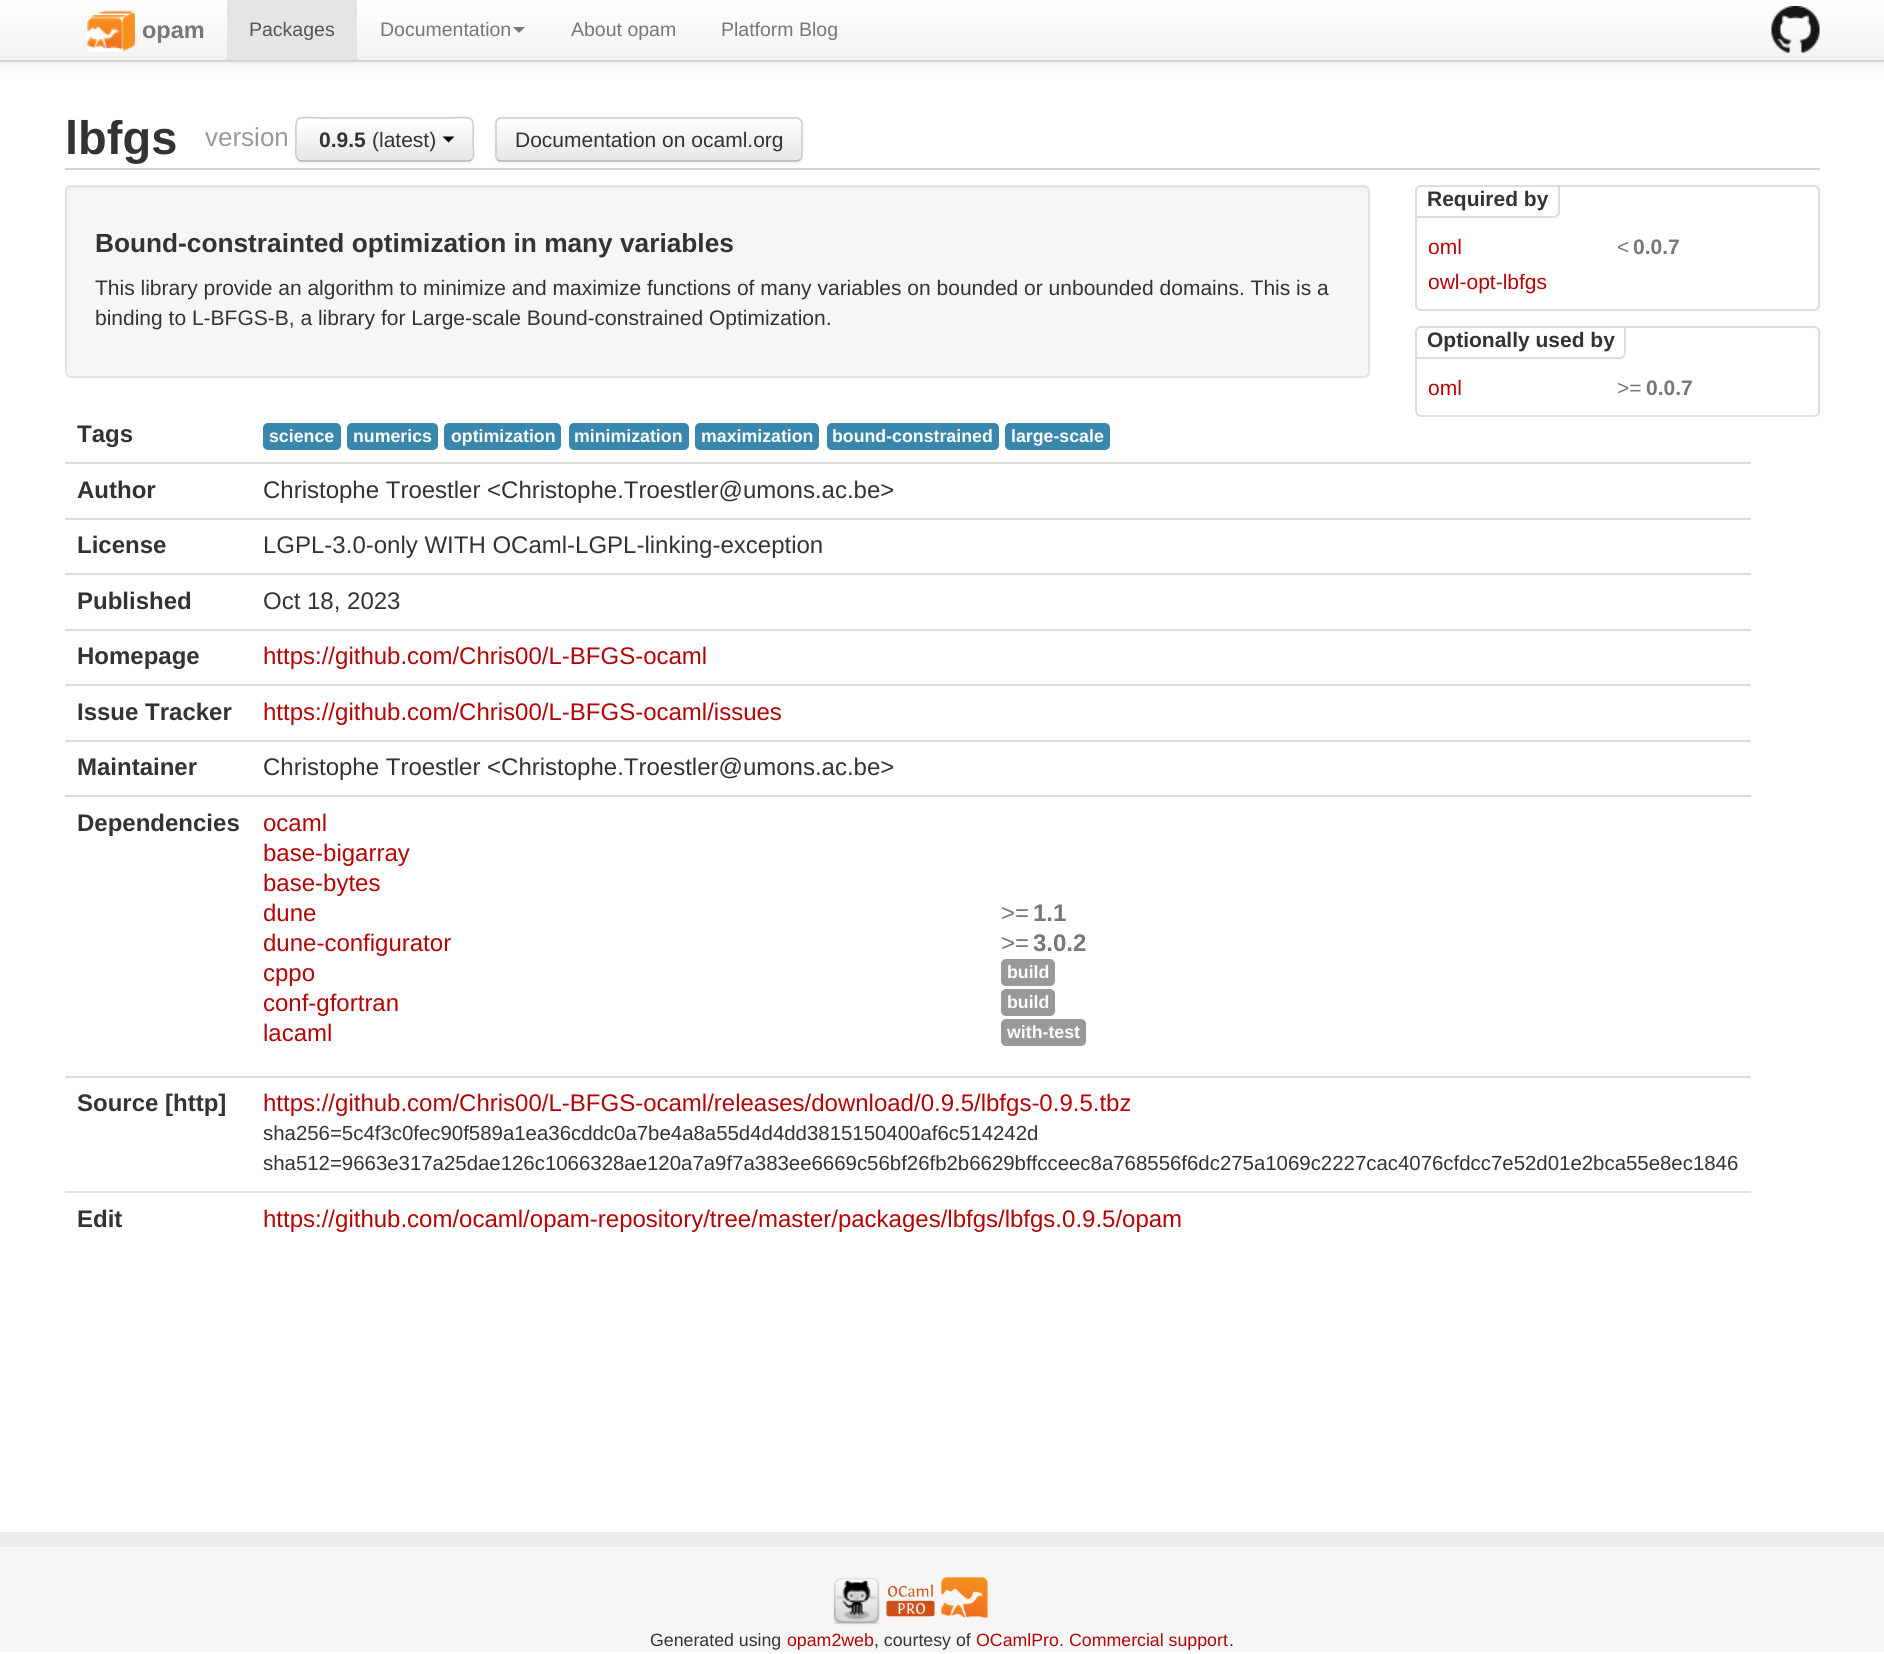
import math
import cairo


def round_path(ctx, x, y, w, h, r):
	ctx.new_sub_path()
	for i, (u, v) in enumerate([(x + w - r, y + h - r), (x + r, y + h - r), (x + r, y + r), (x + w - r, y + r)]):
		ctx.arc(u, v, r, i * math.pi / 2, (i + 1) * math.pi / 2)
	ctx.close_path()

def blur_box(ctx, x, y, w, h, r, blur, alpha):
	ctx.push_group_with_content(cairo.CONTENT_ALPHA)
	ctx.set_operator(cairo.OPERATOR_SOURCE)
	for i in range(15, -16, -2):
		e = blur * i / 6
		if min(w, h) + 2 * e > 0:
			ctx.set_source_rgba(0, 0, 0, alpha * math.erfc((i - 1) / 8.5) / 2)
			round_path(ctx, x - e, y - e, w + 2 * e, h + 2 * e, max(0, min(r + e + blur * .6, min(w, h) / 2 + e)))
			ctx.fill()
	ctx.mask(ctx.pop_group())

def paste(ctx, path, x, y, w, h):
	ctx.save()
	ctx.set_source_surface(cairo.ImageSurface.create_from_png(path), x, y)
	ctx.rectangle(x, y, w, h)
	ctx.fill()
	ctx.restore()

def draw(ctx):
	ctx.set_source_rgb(1, 1, 1)
	ctx.paint()
	ctx.set_source_rgb(0, 0, 0)
	blur_box(ctx, 0, 2, 1884, 61, 0, 7.5, 0.1)
	gradient = cairo.LinearGradient(942, 0, 942, 60)
	gradient.add_color_stop_rgba(0, 1, 1, 1, 1)
	gradient.add_color_stop_rgba(1, 0.949, 0.949, 0.949, 1)
	ctx.set_source(gradient)
	ctx.rectangle(0, 0, 1884, 60)
	ctx.fill()
	ctx.set_source_rgb(0.831, 0.831, 0.831)
	ctx.rectangle(0, 60, 1884, 2)
	ctx.fill()
	paste(ctx, 'media/1.png', 87, 10, 48, 42)
	ctx.select_font_face('Liberation Sans', cairo.FONT_SLANT_NORMAL, cairo.FONT_WEIGHT_BOLD)
	ctx.set_font_size(23.5)
	ctx.set_source_rgb(0.467, 0.467, 0.467)
	ctx.move_to(142, 38)
	ctx.show_text('opam')
	ctx.set_source_rgb(0.898, 0.898, 0.898)
	ctx.rectangle(227, 0, 130, 60)
	ctx.fill()
	ctx.select_font_face('Liberation Sans')
	ctx.set_font_size(19.5)
	ctx.set_source_rgb(0.333, 0.333, 0.333)
	ctx.move_to(249, 36)
	ctx.show_text('Packages')
	ctx.set_source_rgb(0.467, 0.467, 0.467)
	ctx.move_to(380, 36)
	ctx.show_text('Documentation')
	ctx.new_path()
	ctx.move_to(513, 27)
	ctx.line_to(525, 27)
	ctx.line_to(519, 33)
	ctx.close_path()
	ctx.fill()
	ctx.move_to(571, 36)
	ctx.show_text('About opam')
	ctx.move_to(721, 36)
	ctx.show_text('Platform Blog')
	paste(ctx, 'media/2.png', 1771, 6, 49, 47)
	ctx.set_source_rgb(0.827, 0.827, 0.827)
	ctx.rectangle(65, 168, 1755, 2)
	ctx.fill()
	ctx.select_font_face('Liberation Sans', cairo.FONT_SLANT_NORMAL, cairo.FONT_WEIGHT_BOLD)
	ctx.set_font_size(47)
	ctx.set_source_rgb(0.2, 0.2, 0.2)
	ctx.move_to(65, 154)
	ctx.show_text('lbfgs')
	ctx.select_font_face('Liberation Sans')
	ctx.set_font_size(26)
	ctx.set_source_rgb(0.6, 0.6, 0.6)
	ctx.move_to(205, 146)
	ctx.show_text('version')
	ctx.set_source_rgb(0, 0, 0)
	blur_box(ctx, 296, 119, 178, 45, 6, 1.5, 0.05)
	ctx.set_source_rgb(0.961, 0.961, 0.961)
	round_path(ctx, 296, 117, 178, 45, 6)
	ctx.fill()
	ctx.save()
	round_path(ctx, 296, 117, 178, 45, 6)
	ctx.clip()
	gradient = cairo.LinearGradient(385, 119, 385, 161)
	gradient.add_color_stop_rgba(0, 1, 1, 1, 1)
	gradient.add_color_stop_rgba(1, 0.902, 0.902, 0.902, 1)
	ctx.set_source(gradient)
	ctx.rectangle(296, 119, 178, 42)
	ctx.fill()
	ctx.restore()
	ctx.set_source_rgba(1, 1, 1, 0.2)
	ctx.new_path()
	ctx.move_to(302, 120)
	ctx.line_to(468, 120)
	ctx.curve_to(470, 120, 472, 122, 472, 124)
	ctx.line_to(472, 159)
	ctx.curve_to(473, 158, 473, 157, 473, 156)
	ctx.line_to(473, 124)
	ctx.curve_to(473, 121, 471, 119, 468, 119)
	ctx.line_to(302, 119)
	ctx.curve_to(299, 119, 297, 121, 297, 124)
	ctx.curve_to(297, 122, 299, 120, 302, 120)
	ctx.close_path()
	ctx.fill()
	ctx.new_path()
	ctx.move_to(471.5, 159.5)
	ctx.curve_to(470.5, 160.5, 469.5, 161, 468, 161)
	ctx.line_to(301.5, 161)
	ctx.curve_to(300, 161, 299, 160.5, 298, 159.5)
	ctx.set_source_rgb(0.702, 0.702, 0.702)
	ctx.set_line_width(1.5)
	ctx.stroke()
	ctx.new_path()
	ctx.move_to(298, 159.5)
	ctx.curve_to(294.5, 156.5, 296, 148.5, 296, 145)
	ctx.curve_to(296, 111, 291.5, 118, 329, 118)
	ctx.line_to(440, 118)
	ctx.curve_to(478, 118, 473, 111, 473, 145)
	ctx.curve_to(473, 148.5, 475, 156.5, 471.5, 159.5)
	ctx.set_source_rgb(0.8, 0.8, 0.8)
	ctx.stroke()
	ctx.select_font_face('Liberation Sans', cairo.FONT_SLANT_NORMAL, cairo.FONT_WEIGHT_BOLD)
	ctx.set_font_size(21)
	ctx.set_source_rgb(0.2, 0.2, 0.2)
	ctx.move_to(319, 147)
	ctx.show_text('0.9.5')
	ctx.select_font_face('Liberation Sans')
	ctx.move_to(372, 147)
	ctx.show_text('(latest)')
	ctx.set_source_rgb(0, 0, 0)
	ctx.new_path()
	ctx.move_to(442.5, 136.5)
	ctx.line_to(454.5, 136.5)
	ctx.line_to(448.5, 142.5)
	ctx.close_path()
	ctx.fill()
	ctx.set_source_rgb(0, 0, 0)
	blur_box(ctx, 495, 119, 308, 45, 6, 1.5, 0.05)
	ctx.set_source_rgb(0.961, 0.961, 0.961)
	round_path(ctx, 495, 117, 308, 45, 6)
	ctx.fill()
	ctx.save()
	round_path(ctx, 495, 117, 308, 45, 6)
	ctx.clip()
	gradient = cairo.LinearGradient(649, 118, 649, 161)
	gradient.add_color_stop_rgba(0, 1, 1, 1, 1)
	gradient.add_color_stop_rgba(1, 0.902, 0.902, 0.902, 1)
	ctx.set_source(gradient)
	ctx.rectangle(495, 119, 308, 42)
	ctx.fill()
	ctx.restore()
	ctx.new_path()
	ctx.move_to(800, 159.5)
	ctx.curve_to(799, 160.5, 798, 161, 796.5, 161)
	ctx.line_to(501, 161)
	ctx.curve_to(499.5, 161, 498.5, 160.5, 497.5, 159.5)
	ctx.set_source_rgb(0.702, 0.702, 0.702)
	ctx.stroke()
	ctx.new_path()
	ctx.move_to(497.5, 159.5)
	ctx.curve_to(496.5, 158.5, 496, 157.5, 496, 156)
	ctx.line_to(496, 123)
	ctx.curve_to(496, 121.5, 496.5, 120.5, 497.5, 119.5)
	ctx.curve_to(498.5, 118.5, 499.5, 118, 501, 118)
	ctx.line_to(796.5, 118)
	ctx.curve_to(798, 118, 799, 118.5, 800, 119.5)
	ctx.curve_to(801, 120.5, 802, 121.5, 802, 123)
	ctx.line_to(802, 156)
	ctx.curve_to(802, 157.5, 801, 158.5, 800, 159.5)
	ctx.set_source_rgb(0.8, 0.8, 0.8)
	ctx.stroke()
	ctx.set_source_rgb(0.2, 0.2, 0.2)
	ctx.move_to(515, 147)
	ctx.show_text('Documentation on ocaml.org')
	round_path(ctx, 1416, 186, 403, 124, 5)
	ctx.set_source_rgb(0.867, 0.867, 0.867)
	ctx.set_line_width(2)
	ctx.stroke()
	ctx.new_path()
	ctx.move_to(1560, 186)
	ctx.line_to(1560, 212)
	ctx.curve_to(1560, 215, 1557, 218, 1554, 218)
	ctx.line_to(1416, 218)
	ctx.line_to(1416, 191)
	ctx.curve_to(1416, 190, 1416, 189, 1417, 188)
	ctx.line_to(1417, 216)
	ctx.line_to(1554, 216)
	ctx.curve_to(1556, 216, 1558, 214, 1558, 212)
	ctx.line_to(1558, 186)
	ctx.close_path()
	ctx.fill()
	ctx.select_font_face('Liberation Sans', cairo.FONT_SLANT_NORMAL, cairo.FONT_WEIGHT_BOLD)
	ctx.set_source_rgb(0.2, 0.2, 0.2)
	ctx.move_to(1427, 206)
	ctx.show_text('Required by')
	ctx.select_font_face('Liberation Sans')
	ctx.set_source_rgb(0.706, 0.016, 0.016)
	ctx.move_to(1428, 254)
	ctx.show_text('oml')
	ctx.set_source_rgb(0.467, 0.467, 0.467)
	ctx.move_to(1617, 254)
	ctx.show_text('<')
	ctx.select_font_face('Liberation Sans', cairo.FONT_SLANT_NORMAL, cairo.FONT_WEIGHT_BOLD)
	ctx.move_to(1633, 254)
	ctx.show_text('0.0.7')
	ctx.select_font_face('Liberation Sans')
	ctx.set_source_rgb(0.706, 0.016, 0.016)
	ctx.move_to(1428, 289)
	ctx.show_text('owl-opt-lbfgs')
	round_path(ctx, 1416, 327, 403, 89, 5)
	ctx.set_source_rgb(0.867, 0.867, 0.867)
	ctx.stroke()
	ctx.new_path()
	ctx.move_to(1626, 327)
	ctx.line_to(1626, 353)
	ctx.curve_to(1626, 356, 1623, 359, 1620, 359)
	ctx.line_to(1416, 359)
	ctx.line_to(1416, 332)
	ctx.curve_to(1416, 331, 1416, 330, 1417, 329)
	ctx.line_to(1417, 357)
	ctx.line_to(1620, 357)
	ctx.curve_to(1622, 357, 1624, 355, 1624, 353)
	ctx.line_to(1624, 327)
	ctx.close_path()
	ctx.fill()
	ctx.select_font_face('Liberation Sans', cairo.FONT_SLANT_NORMAL, cairo.FONT_WEIGHT_BOLD)
	ctx.set_source_rgb(0.2, 0.2, 0.2)
	ctx.move_to(1427, 347)
	ctx.show_text('Optionally used by')
	ctx.select_font_face('Liberation Sans')
	ctx.set_source_rgb(0.706, 0.016, 0.016)
	ctx.move_to(1428, 395)
	ctx.show_text('oml')
	ctx.set_source_rgb(0.467, 0.467, 0.467)
	ctx.move_to(1617, 395)
	ctx.show_text('>=')
	ctx.select_font_face('Liberation Sans', cairo.FONT_SLANT_NORMAL, cairo.FONT_WEIGHT_BOLD)
	ctx.move_to(1646, 395)
	ctx.show_text('0.0.7')
	ctx.set_source_rgb(0.961, 0.961, 0.961)
	round_path(ctx, 65, 185, 1305, 193, 6)
	ctx.fill()
	ctx.set_source_rgb(0.914, 0.914, 0.914)
	ctx.new_path()
	ctx.move_to(70, 188)
	ctx.line_to(1364, 188)
	ctx.curve_to(1366, 188, 1368, 190, 1368, 192)
	ctx.curve_to(1368, 189, 1366, 186, 1363, 186)
	ctx.line_to(71, 186)
	ctx.curve_to(68, 186, 66, 189, 66, 192)
	ctx.curve_to(66, 190, 68, 188, 70, 188)
	ctx.close_path()
	ctx.fill()
	round_path(ctx, 66, 186, 1303, 191, 5)
	ctx.set_source_rgb(0.89, 0.89, 0.89)
	ctx.stroke()
	ctx.set_font_size(26.25)
	ctx.set_source_rgb(0.2, 0.2, 0.2)
	ctx.move_to(95, 252)
	ctx.show_text('Bound-constrainted optimization in many variables')
	ctx.select_font_face('Liberation Sans')
	ctx.set_font_size(21)
	ctx.move_to(95, 295)
	ctx.show_text('This library provide an algorithm to minimize and maximize functions of many variables on bounded or unbounded domains. This is a')
	ctx.move_to(95, 325)
	ctx.show_text('binding to L-BFGS-B, a library for Large-scale Bound-constrained Optimization.')
	ctx.select_font_face('Liberation Sans', cairo.FONT_SLANT_NORMAL, cairo.FONT_WEIGHT_BOLD)
	ctx.set_font_size(24)
	ctx.move_to(77, 442)
	ctx.show_text('Tags')
	ctx.set_source_rgb(0.227, 0.529, 0.678)
	round_path(ctx, 263, 423, 78, 27, 5)
	ctx.fill()
	ctx.set_font_size(17.75)
	ctx.set_source_rgb(1, 1, 1)
	ctx.move_to(269, 442)
	ctx.show_text('science')
	ctx.set_source_rgb(0.227, 0.529, 0.678)
	round_path(ctx, 347, 423, 91, 27, 5)
	ctx.fill()
	ctx.set_source_rgb(1, 1, 1)
	ctx.move_to(353, 442)
	ctx.show_text('numerics')
	ctx.set_source_rgb(0.227, 0.529, 0.678)
	round_path(ctx, 444, 423, 117, 27, 5)
	ctx.fill()
	ctx.set_source_rgb(1, 1, 1)
	ctx.move_to(451, 442)
	ctx.show_text('optimization')
	ctx.set_source_rgb(0.227, 0.529, 0.678)
	round_path(ctx, 569, 423, 120, 27, 5)
	ctx.fill()
	ctx.set_source_rgb(1, 1, 1)
	ctx.move_to(574, 442)
	ctx.show_text('minimization')
	ctx.set_source_rgb(0.227, 0.529, 0.678)
	round_path(ctx, 695, 423, 124, 27, 5)
	ctx.fill()
	ctx.set_source_rgb(1, 1, 1)
	ctx.move_to(701, 442)
	ctx.show_text('maximization')
	ctx.set_source_rgb(0.227, 0.529, 0.678)
	round_path(ctx, 827, 423, 172, 27, 5)
	ctx.fill()
	ctx.set_source_rgb(1, 1, 1)
	ctx.move_to(832, 442)
	ctx.show_text('bound-constrained')
	ctx.set_source_rgb(0.227, 0.529, 0.678)
	round_path(ctx, 1005, 423, 105, 27, 5)
	ctx.fill()
	ctx.set_source_rgb(1, 1, 1)
	ctx.move_to(1011, 442)
	ctx.show_text('large-scale')
	ctx.set_font_size(24)
	ctx.set_source_rgb(0.2, 0.2, 0.2)
	ctx.move_to(77, 498)
	ctx.show_text('Author')
	ctx.set_source_rgb(0.867, 0.867, 0.867)
	ctx.rectangle(65, 462, 1686, 2)
	ctx.fill()
	ctx.select_font_face('Liberation Sans')
	ctx.set_source_rgb(0.2, 0.2, 0.2)
	ctx.move_to(263, 498)
	ctx.show_text('Christophe Troestler <Christophe.Troestler@umons.ac.be>')
	ctx.select_font_face('Liberation Sans', cairo.FONT_SLANT_NORMAL, cairo.FONT_WEIGHT_BOLD)
	ctx.move_to(77, 553)
	ctx.show_text('License')
	ctx.set_source_rgb(0.867, 0.867, 0.867)
	ctx.rectangle(65, 518, 1686, 2)
	ctx.fill()
	ctx.select_font_face('Liberation Sans')
	ctx.set_source_rgb(0.2, 0.2, 0.2)
	ctx.move_to(263, 553)
	ctx.show_text('LGPL-3.0-only WITH OCaml-LGPL-linking-exception')
	ctx.select_font_face('Liberation Sans', cairo.FONT_SLANT_NORMAL, cairo.FONT_WEIGHT_BOLD)
	ctx.move_to(77, 609)
	ctx.show_text('Published')
	ctx.set_source_rgb(0.867, 0.867, 0.867)
	ctx.rectangle(65, 573, 1686, 2)
	ctx.fill()
	ctx.select_font_face('Liberation Sans')
	ctx.set_source_rgb(0.2, 0.2, 0.2)
	ctx.move_to(263, 609)
	ctx.show_text('Oct 18, 2023')
	ctx.select_font_face('Liberation Sans', cairo.FONT_SLANT_NORMAL, cairo.FONT_WEIGHT_BOLD)
	ctx.move_to(77, 664)
	ctx.show_text('Homepage')
	ctx.set_source_rgb(0.867, 0.867, 0.867)
	ctx.rectangle(65, 629, 1686, 2)
	ctx.fill()
	ctx.select_font_face('Liberation Sans')
	ctx.set_source_rgb(0.706, 0.016, 0.016)
	ctx.move_to(263, 664)
	ctx.show_text('https://github.com/Chris00/L-BFGS-ocaml')
	ctx.select_font_face('Liberation Sans', cairo.FONT_SLANT_NORMAL, cairo.FONT_WEIGHT_BOLD)
	ctx.set_source_rgb(0.2, 0.2, 0.2)
	ctx.move_to(77, 720)
	ctx.show_text('Issue Tracker')
	ctx.set_source_rgb(0.867, 0.867, 0.867)
	ctx.rectangle(65, 684, 1686, 2)
	ctx.fill()
	ctx.select_font_face('Liberation Sans')
	ctx.set_source_rgb(0.706, 0.016, 0.016)
	ctx.move_to(263, 720)
	ctx.show_text('https://github.com/Chris00/L-BFGS-ocaml/issues')
	ctx.select_font_face('Liberation Sans', cairo.FONT_SLANT_NORMAL, cairo.FONT_WEIGHT_BOLD)
	ctx.set_source_rgb(0.2, 0.2, 0.2)
	ctx.move_to(77, 775)
	ctx.show_text('Maintainer')
	ctx.set_source_rgb(0.867, 0.867, 0.867)
	ctx.rectangle(65, 740, 1686, 2)
	ctx.fill()
	ctx.select_font_face('Liberation Sans')
	ctx.set_source_rgb(0.2, 0.2, 0.2)
	ctx.move_to(263, 775)
	ctx.show_text('Christophe Troestler <Christophe.Troestler@umons.ac.be>')
	ctx.select_font_face('Liberation Sans', cairo.FONT_SLANT_NORMAL, cairo.FONT_WEIGHT_BOLD)
	ctx.move_to(77, 831)
	ctx.show_text('Dependencies')
	ctx.set_source_rgb(0.867, 0.867, 0.867)
	ctx.rectangle(65, 795, 1686, 2)
	ctx.fill()
	ctx.select_font_face('Liberation Sans')
	ctx.set_source_rgb(0.706, 0.016, 0.016)
	for x, y, s in [
		(263, 831, 'ocaml'),
		(263, 861, 'base-bigarray'),
		(263, 891, 'base-bytes'),
		(263, 921, 'dune'),
	]:
		ctx.move_to(x, y)
		ctx.show_text(s)
	ctx.set_source_rgb(0.467, 0.467, 0.467)
	ctx.move_to(1001, 921)
	ctx.show_text('>=')
	ctx.select_font_face('Liberation Sans', cairo.FONT_SLANT_NORMAL, cairo.FONT_WEIGHT_BOLD)
	ctx.move_to(1033, 921)
	ctx.show_text('1.1')
	ctx.select_font_face('Liberation Sans')
	ctx.set_source_rgb(0.706, 0.016, 0.016)
	ctx.move_to(263, 951)
	ctx.show_text('dune-configurator')
	ctx.set_source_rgb(0.467, 0.467, 0.467)
	ctx.move_to(1001, 951)
	ctx.show_text('>=')
	ctx.select_font_face('Liberation Sans', cairo.FONT_SLANT_NORMAL, cairo.FONT_WEIGHT_BOLD)
	ctx.move_to(1033, 951)
	ctx.show_text('3.0.2')
	ctx.select_font_face('Liberation Sans')
	ctx.set_source_rgb(0.706, 0.016, 0.016)
	ctx.move_to(263, 981)
	ctx.show_text('cppo')
	ctx.set_source_rgb(0.6, 0.6, 0.6)
	round_path(ctx, 1001, 959, 54, 27, 5)
	ctx.fill()
	ctx.select_font_face('Liberation Sans', cairo.FONT_SLANT_NORMAL, cairo.FONT_WEIGHT_BOLD)
	ctx.set_font_size(17.75)
	ctx.set_source_rgb(1, 1, 1)
	ctx.move_to(1007, 978)
	ctx.show_text('build')
	ctx.select_font_face('Liberation Sans')
	ctx.set_font_size(24)
	ctx.set_source_rgb(0.706, 0.016, 0.016)
	ctx.move_to(263, 1011)
	ctx.show_text('conf-gfortran')
	ctx.set_source_rgb(0.6, 0.6, 0.6)
	round_path(ctx, 1001, 989, 54, 27, 5)
	ctx.fill()
	ctx.select_font_face('Liberation Sans', cairo.FONT_SLANT_NORMAL, cairo.FONT_WEIGHT_BOLD)
	ctx.set_font_size(17.75)
	ctx.set_source_rgb(1, 1, 1)
	ctx.move_to(1007, 1008)
	ctx.show_text('build')
	ctx.select_font_face('Liberation Sans')
	ctx.set_font_size(24)
	ctx.set_source_rgb(0.706, 0.016, 0.016)
	ctx.move_to(263, 1041)
	ctx.show_text('lacaml')
	ctx.set_source_rgb(0.6, 0.6, 0.6)
	round_path(ctx, 1001, 1019, 85, 27, 5)
	ctx.fill()
	ctx.select_font_face('Liberation Sans', cairo.FONT_SLANT_NORMAL, cairo.FONT_WEIGHT_BOLD)
	ctx.set_font_size(17.75)
	ctx.set_source_rgb(1, 1, 1)
	ctx.move_to(1007, 1038)
	ctx.show_text('with-test')
	ctx.set_font_size(24)
	ctx.set_source_rgb(0.2, 0.2, 0.2)
	ctx.move_to(77, 1111)
	ctx.show_text('Source [http]')
	ctx.set_source_rgb(0.867, 0.867, 0.867)
	ctx.rectangle(65, 1076, 1686, 2)
	ctx.fill()
	ctx.select_font_face('Liberation Sans')
	ctx.set_source_rgb(0.706, 0.016, 0.016)
	ctx.move_to(263, 1111)
	ctx.show_text('https://github.com/Chris00/L-BFGS-ocaml/releases/download/0.9.5/lbfgs-0.9.5.tbz')
	ctx.set_font_size(20.4)
	ctx.set_source_rgb(0.2, 0.2, 0.2)
	ctx.move_to(263, 1140)
	ctx.show_text('sha256=5c4f3c0fec90f589a1ea36cddc0a7be4a8a55d4d4dd3815150400af6c514242d')
	ctx.move_to(263, 1170)
	ctx.show_text('sha512=9663e317a25dae126c1066328ae120a7a9f7a383ee6669c56bf26fb2b6629bffcceec8a768556f6dc275a1069c2227cac4076cfdcc7e52d01e2bca55e8ec1846')
	ctx.select_font_face('Liberation Sans', cairo.FONT_SLANT_NORMAL, cairo.FONT_WEIGHT_BOLD)
	ctx.set_font_size(24)
	ctx.move_to(77, 1227)
	ctx.show_text('Edit')
	ctx.set_source_rgb(0.867, 0.867, 0.867)
	ctx.rectangle(65, 1191, 1686, 2)
	ctx.fill()
	ctx.select_font_face('Liberation Sans')
	ctx.set_source_rgb(0.706, 0.016, 0.016)
	ctx.move_to(263, 1227)
	ctx.show_text('https://github.com/ocaml/opam-repository/tree/master/packages/lbfgs/lbfgs.0.9.5/opam')
	ctx.set_source_rgb(0.961, 0.961, 0.961)
	ctx.rectangle(0, 1547, 1884, 105)
	ctx.fill()
	ctx.set_source_rgb(0.922, 0.922, 0.922)
	ctx.rectangle(0, 1532, 1884, 15)
	ctx.fill()
	paste(ctx, 'media/3.png', 833, 1578, 47, 47)
	paste(ctx, 'media/4.png', 886, 1584, 49, 33)
	paste(ctx, 'media/5.png', 940, 1576, 48, 43)
	ctx.set_font_size(17.75)
	ctx.set_source_rgb(0.2, 0.2, 0.2)
	ctx.move_to(650, 1646)
	ctx.show_text('Generated using')
	ctx.set_source_rgb(0.706, 0.016, 0.016)
	ctx.move_to(787, 1646)
	ctx.show_text('opam2web')
	ctx.set_source_rgb(0.2, 0.2, 0.2)
	ctx.move_to(874, 1646)
	ctx.show_text(', courtesy of')
	ctx.set_source_rgb(0.706, 0.016, 0.016)
	ctx.move_to(976, 1646)
	ctx.show_text('OCamlPro')
	ctx.set_source_rgb(0.2, 0.2, 0.2)
	ctx.move_to(1059, 1646)
	ctx.show_text('.')
	ctx.set_source_rgb(0.706, 0.016, 0.016)
	ctx.move_to(1069, 1646)
	ctx.show_text('Commercial support')
	ctx.set_source_rgb(0.2, 0.2, 0.2)
	ctx.move_to(1229, 1646)
	ctx.show_text('.')


surface = cairo.ImageSurface(cairo.FORMAT_RGB24, 1884, 1654)
ctx = cairo.Context(surface)
options = cairo.FontOptions()
options.set_hint_metrics(cairo.HINT_METRICS_OFF)
options.set_hint_style(cairo.HINT_STYLE_NONE)
ctx.set_font_options(options)
ctx.set_miter_limit(4)
draw(ctx)
surface.write_to_png('image.png')
